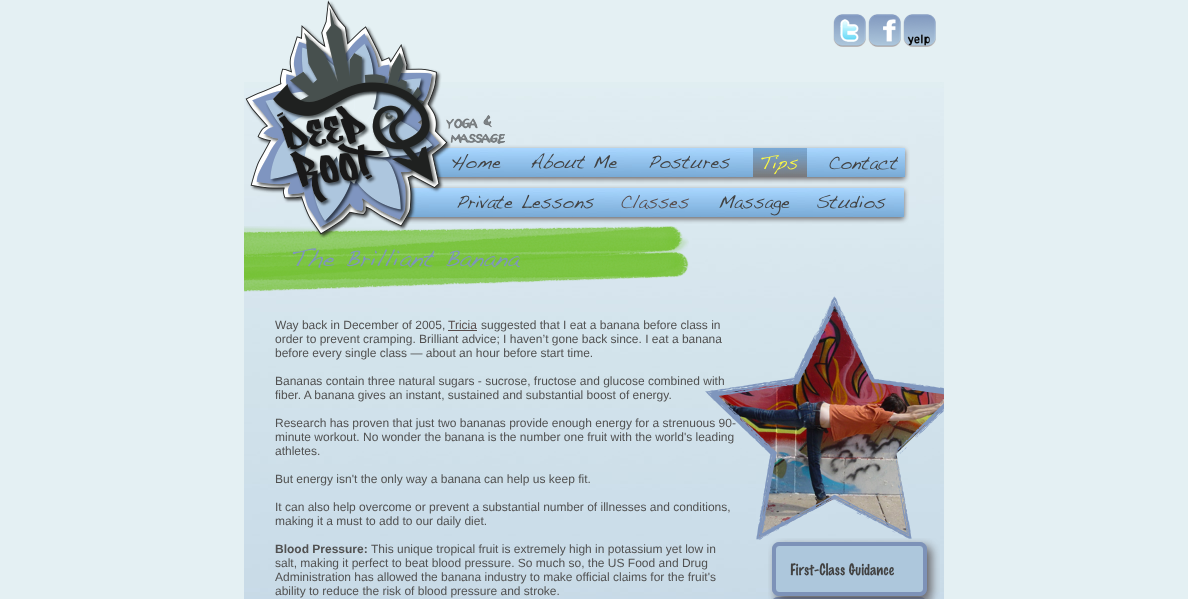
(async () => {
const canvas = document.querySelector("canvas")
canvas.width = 1188
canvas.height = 599
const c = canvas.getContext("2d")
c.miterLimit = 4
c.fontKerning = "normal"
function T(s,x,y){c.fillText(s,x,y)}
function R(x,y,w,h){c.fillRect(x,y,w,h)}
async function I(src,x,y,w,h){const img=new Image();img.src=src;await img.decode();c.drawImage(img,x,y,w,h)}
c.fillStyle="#e4f0f3"
R(0,0,1188,599)
await I("1.png",244,82,700,517)
await I("7.png",446,115,59,29)
await I("8.png",432,148,473,29)
await I("9.png",421,145,489,39)
await I("16.png",417,188,461,29)
await I("18.png",406,188,11,29)
await I("23.png",878,188,26,29)
await I("17.png",403,185,506,39)
await I("24.png",244,226,445,66)
await I("2.png",245,0,206,238)
await I("3.png",833,14,33,33)
await I("3.png",868,14,33,33)
await I("3.png",903,14,33,33)
await I("4.png",840,19,19,23)
await I("5.png",883,19,13,23)
await I("6.png",907,34,23,12)
await I("10.png",452,154,49,17)
await I("11.png",531,153,87,16)
await I("12.png",649,155,82,14)
await I("13.png",753,148,54,29)
await I("14.png",761,155,38,20)
await I("15.png",829,156,69,14)
await I("19.png",457,194,138,15)
await I("20.png",621,194,69,15)
await I("21.png",719,195,71,21)
await I("22.png",817,194,69,15)
await I("25.png",292,248,228,20)
c.font="12px Liberation Sans"
c.fillStyle="#515151"
T("Way back in December of 2005,",275,329)
c.fillStyle="#584d4d"
T("Tricia",448,329)
R(448,330,29,1)
c.fillStyle="#515151"
T("suggested that I eat a banana before class in",481,329)
T("order to prevent cramping. Brilliant advice; I haven’t gone back since. I eat a banana",275,343)
T("before every single class — about an hour before start time.",275,357)
T("Bananas contain three natural sugars - sucrose, fructose and glucose combined with",275,385)
T("fiber. A banana gives an instant, sustained and substantial boost of energy.",275,399)
T("Research has proven that just two bananas provide enough energy for a strenuous 90-",275,427)
T("minute workout. No wonder the banana is the number one fruit with the world's leading",275,441)
T("athletes.",275,455)
T("But energy isn't the only way a banana can help us keep fit.",275,483)
T("It can also help overcome or prevent a substantial number of illnesses and conditions,",275,511)
T("making it a must to add to our daily diet.",275,525)
c.font="bold 12px Liberation Sans"
T("Blood Pressure:",275,553)
c.font="12px Liberation Sans"
T("This unique tropical fruit is extremely high in potassium yet low in",371,553)
T("salt, making it perfect to beat blood pressure. So much so, the US Food and Drug",275,567)
T("Administration has allowed the banana industry to make official claims for the fruit's",275,581)
T("ability to reduce the risk of blood pressure and stroke.",275,595)
await I("28.png",771,594,164,5)
await I("27.png",768,538,172,61)
await I("26.png",705,296,239,244)
})()
